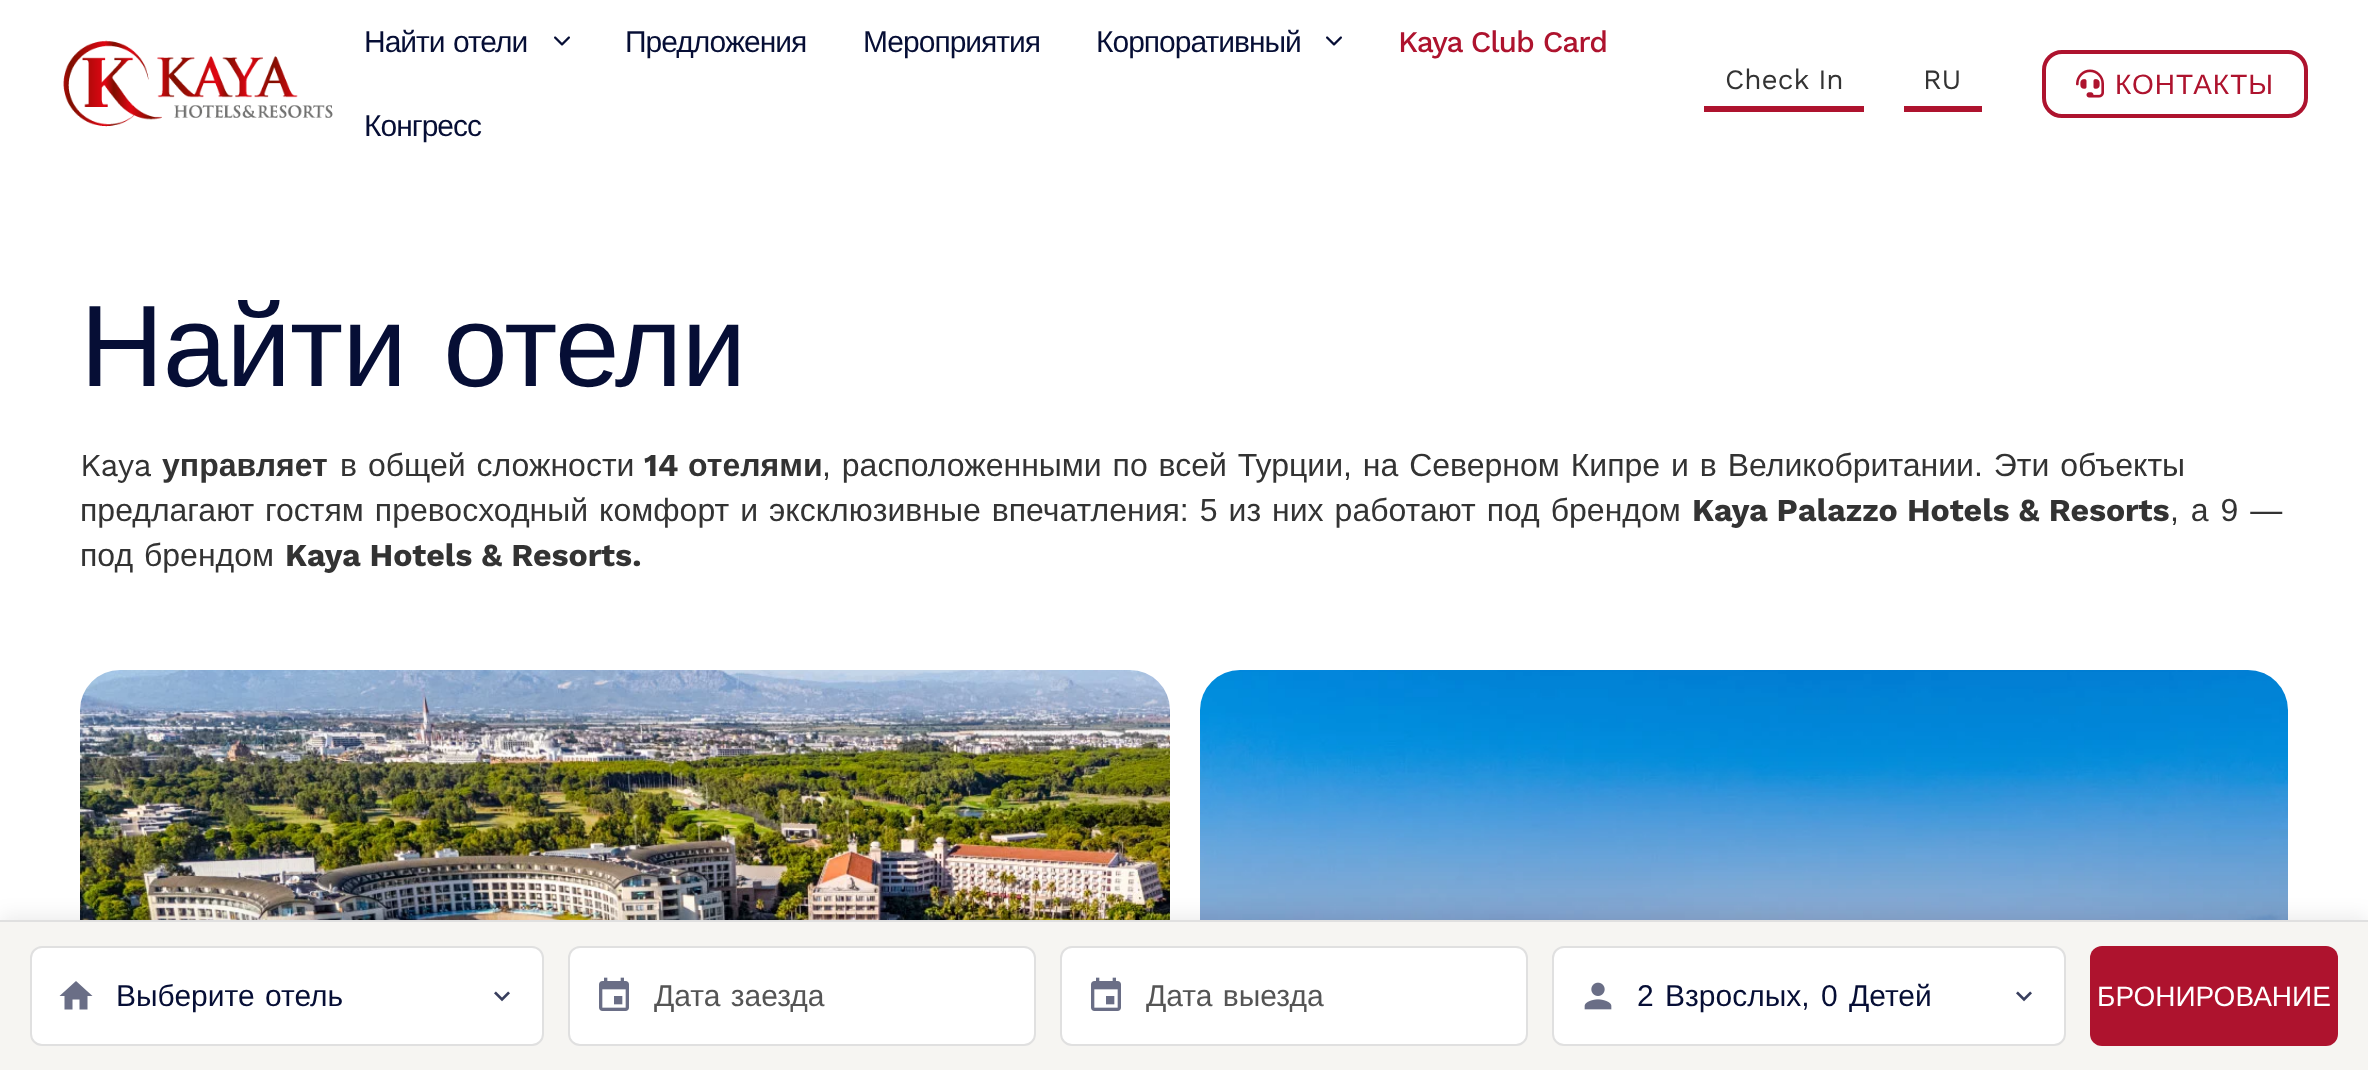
(async () => {
const canvas = document.querySelector("canvas")
canvas.width = 2368
canvas.height = 1070
const c = canvas.getContext("2d")
c.miterLimit = 4
c.fontKerning = "normal"
function T(s,x,y){c.fillText(s,x,y)}
function R(x,y,w,h){c.fillRect(x,y,w,h)}
function Q(x,y,w,h,r){c.beginPath();c.roundRect(x,y,w,h,r);c.fill()}
async function I(src,x,y,w,h){const img=new Image();img.src=src;await img.decode();c.drawImage(img,x,y,w,h)}
let path
c.fillStyle="#fff"
R(0,0,2368,1070)
await I("1.png",63,40,270,87)
c.letterSpacing="-1px"
c.wordSpacing="1px"
c.font="30px Liberation Sans"
c.fillStyle="#060e35"
T("Найти отели",364,52)
await I("2.png",554,36,16,10)
c.wordSpacing="0px"
T("Предложения",625,52)
T("Мероприятия",863,52)
T("Корпоративный",1096,52)
await I("2.png",1326,36,16,10)
c.font="500 30px Work Sans"
c.fillStyle="#ae132e"
T("Kaya Club Card",1398,52)
c.font="30px Liberation Sans"
c.fillStyle="#060e35"
T("Конгресс",364,136)
c.fillStyle="#ae132e"
R(1704,106,160,6)
c.letterSpacing="0px"
c.font="28px Work Sans"
c.fillStyle="#333"
T("Check In",1725,89)
c.fillStyle="#ae132e"
R(1904,106,78,6)
c.fillStyle="#333"
T("RU",1923,89)
c.beginPath()
c.roundRect(2044,52,262,64,18)
c.strokeStyle="#ae132e"
c.lineWidth=4
c.stroke()
await I("3.png",2076,69,28,29)
c.letterSpacing="1px"
c.font="28px Liberation Sans"
c.fillStyle="#ae132e"
T("КОНТАКТЫ",2115,94)
c.letterSpacing="-1px"
c.wordSpacing="6px"
c.font="116px Liberation Sans"
c.fillStyle="#060e35"
T("Найти отели",80,386)
c.letterSpacing="0px"
c.wordSpacing="0px"
c.font="32px Work Sans"
c.fillStyle="#333"
T("Kaya",80,476)
c.font="bold 32px Liberation Sans"
T("управляет",162,476)
c.wordSpacing="2px"
c.font="32px Liberation Sans"
T("в общей сложности",340,476)
c.wordSpacing="0px"
c.font="bold 32px Work Sans"
T("14",644,476)
c.font="bold 32px Liberation Sans"
T("отелями",688,476)
c.wordSpacing="2px"
c.font="32px Liberation Sans"
T(", расположенными по всей Турции, на Северном Кипре и в Великобритании. Эти объекты",822,476)
c.wordSpacing="2.1px"
T("предлагают гостям превосходный комфорт и эксклюзивные впечатления: 5 из них работают под брендом",80,521)
c.wordSpacing="0px"
c.font="bold 32px Work Sans"
T("Kaya Palazzo Hotels & Resorts",1692,521)
c.wordSpacing="3px"
c.font="32px Liberation Sans"
T(", а 9 —",2170,521)
c.wordSpacing="2px"
T("под брендом",80,566)
c.wordSpacing="0px"
c.font="bold 32px Work Sans"
T("Kaya Hotels & Resorts.",285,566)
await I("4.png",80,670,1090,250)
await I("5.png",1200,670,1088,250)
c.fillStyle="#00000014"
c.filter="blur(10px)"
c.beginPath()
c.rect(0,916,2368,150)
c.fill()
c.filter="none"
c.fillStyle="#f6f5f2"
R(0,922,2368,148)
c.fillStyle="#e0e0e0"
R(0,920,2368,2)
c.fillStyle="#fff"
c.beginPath()
c.roundRect(31,947,512,98,11)
c.fill()
c.strokeStyle="#e0e0e0"
c.lineWidth=2
c.stroke()
c.fillStyle="#6a6e86"
path = new Path2D("M72.5 1009.5v-10h7v10h8v-13.5h5l-16.5-15l-16.5 15h5v13.5z")
c.fill(path)
c.wordSpacing="2px"
c.font="30px Liberation Sans"
c.fillStyle="#060e35"
T("Выберите отель",116,1006)
await I("6.png",494,991,16,11)
c.fillStyle="#fff"
c.beginPath()
c.roundRect(569,947,466,98,11)
c.fill()
c.stroke()
await I("7.png",599,977,30,34)
c.fillStyle="#555"
T("Дата заезда",654,1006)
c.fillStyle="#fff"
c.beginPath()
c.roundRect(1061,947,466,98,11)
c.fill()
c.stroke()
await I("7.png",1091,977,30,34)
c.save()
c.beginPath()
c.rect(1146,978,356,36)
c.clip()
c.fillStyle="#555"
T("Дата выезда",1146,1006)
c.restore()
c.beginPath()
c.roundRect(1553,947,512,98,11)
c.fill()
c.stroke()
await I("8.png",1584,982,28,28)
c.wordSpacing="3px"
c.fillStyle="#060e35"
T("2 Взрослых, 0 Детей",1637,1006)
await I("6.png",2016,991,16,11)
c.fillStyle="#ae132e"
Q(2090,946,248,100,12)
c.wordSpacing="0px"
c.font="28px Liberation Sans"
c.fillStyle="#fff"
T("БРОНИРОВАНИЕ",2097,1006)
})()
